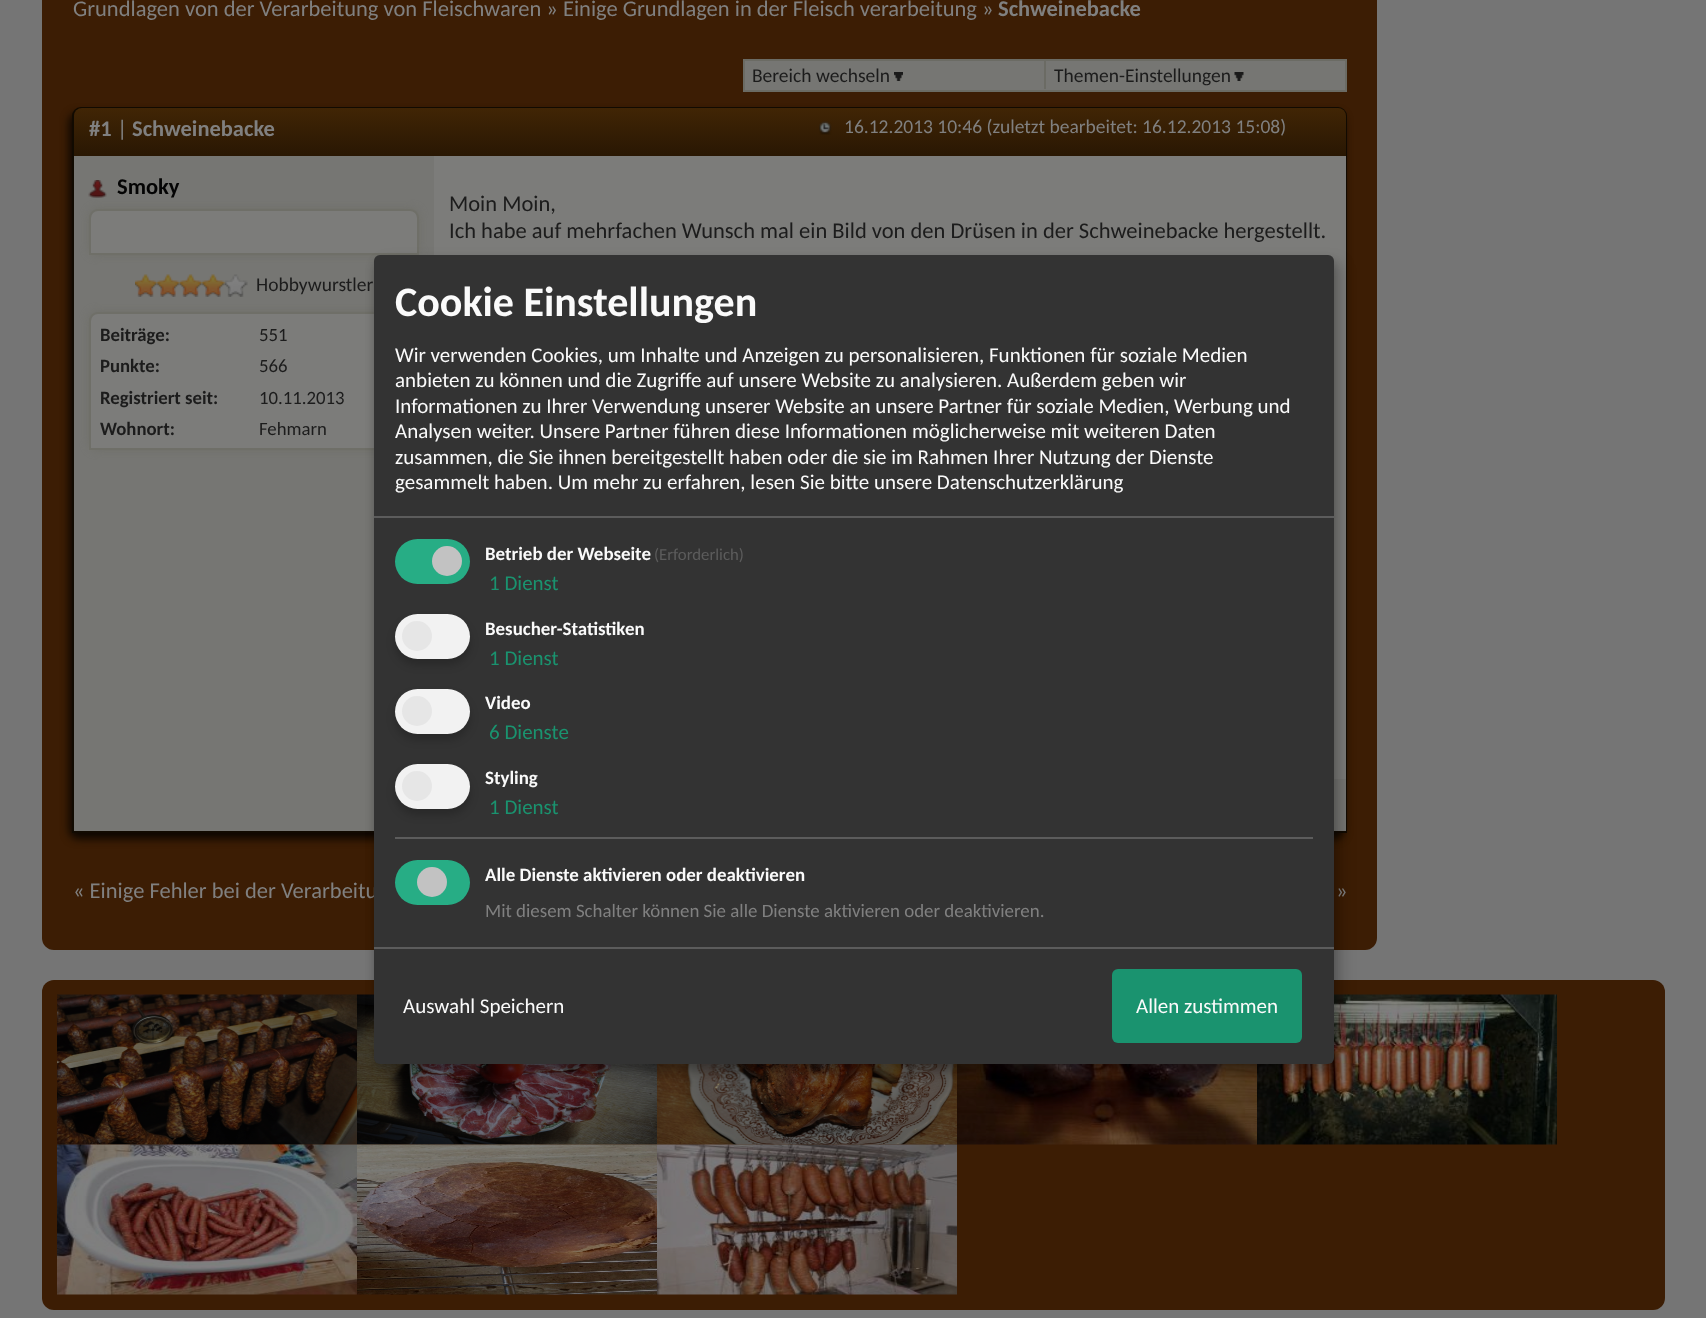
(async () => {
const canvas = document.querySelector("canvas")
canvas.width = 1706
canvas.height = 1318
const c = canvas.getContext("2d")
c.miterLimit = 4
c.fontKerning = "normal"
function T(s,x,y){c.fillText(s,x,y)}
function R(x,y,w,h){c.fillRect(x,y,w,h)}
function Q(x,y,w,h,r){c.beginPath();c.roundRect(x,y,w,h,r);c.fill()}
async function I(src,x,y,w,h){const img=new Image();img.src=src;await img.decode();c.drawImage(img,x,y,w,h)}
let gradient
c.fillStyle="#757575"
R(0,0,1706,1318)
c.fillStyle="#3c1d04"
Q(42,-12,1335,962,12)
c.font="22.5px Carlito"
c.fillStyle="#808080"
T("Grundlagen von der Verarbeitung von Fleischwaren » Einige Grundlagen in der Fleisch verarbeitung »",73,16)
c.font="bold 22.5px Carlito"
T("Schweinebacke",998,16)
c.fillStyle="#767673"
c.beginPath()
c.rect(744,60,602,31)
c.fill()
c.strokeStyle="#6b6b64"
c.lineWidth=2
c.stroke()
c.font="19.5px Carlito"
c.fillStyle="#1c1c1c"
T("Bereich wechseln",752,82)
await I("1.png",894,72,9,9)
c.fillStyle="#6b6b64"
R(1044,60,2,29)
c.fillStyle="#1c1c1c"
T("Themen-Einstellungen",1054,82)
await I("2.png",1234,72,10,9)
c.fillStyle="#0c0601"
c.filter="blur(4.5px)"
c.beginPath()
c.roundRect(69,113,1275,726,9)
c.fill()
c.filter="none"
c.beginPath()
c.roundRect(73,108,1273,724,[8,8,0,0])
c.strokeStyle="#110a01"
c.stroke()
gradient = c.createLinearGradient(74,108,74,156)
gradient.addColorStop(0,"#412505")
gradient.addColorStop(1,"#291703")
c.fillStyle = gradient
c.beginPath()
c.roundRect(74,108,1272,48,[8,8,0,0])
c.fill()
c.font="bold 22.5px Carlito"
c.fillStyle="#808080"
T("#1",89,136)
c.font="22.5px Carlito"
T("|",117,136)
c.font="bold 22.5px Carlito"
T("Schweinebacke",132,136)
await I("3.png",819,121,13,14)
c.font="19.5px Carlito"
T("16.12.2013 10:46 (zuletzt bearbeitet: 16.12.2013 15:08)",844,133)
c.fillStyle="#7c7c7a"
R(434,156,912,623)
c.fillStyle="#767673"
R(74,156,360,623)
await I("4.png",88,180,19,18)
c.font="bold 22.5px Carlito"
c.fillStyle="#040404"
T("Smoky",117,194)
c.fillStyle="#6f6f68"
c.filter="blur(4.5px)"
c.beginPath()
c.roundRect(89,209,330,46,9)
c.fill()
c.filter="none"
c.fillStyle="#7c7c7a"
c.beginPath()
c.roundRect(90,210,328,44,[8,8,0,0])
c.fill()
c.strokeStyle="#6f6f68"
c.stroke()
await I("5.png",135,274,113,23)
c.font="19.5px Carlito"
c.fillStyle="#1c1c1c"
T("Hobbywurstler",256,291)
c.fillStyle="#6f6f68"
c.filter="blur(4.5px)"
c.beginPath()
c.roundRect(89,312,330,138,9)
c.fill()
c.filter="none"
c.fillStyle="#7c7c7a"
c.beginPath()
c.roundRect(90,313,328,136,[8,8,0,0])
c.fill()
c.stroke()
c.font="bold 18.75px Carlito"
c.fillStyle="#1c1c1c"
T("Beiträge:",100,341)
c.font="18.75px Carlito"
T("551",259,341)
c.font="bold 18.75px Carlito"
T("Punkte:",100,372)
c.font="18.75px Carlito"
T("566",259,372)
c.font="bold 18.75px Carlito"
T("Registriert seit:",100,404)
c.font="18.75px Carlito"
T("10.11.2013",259,404)
c.font="bold 18.75px Carlito"
T("Wohnort:",100,435)
c.font="18.75px Carlito"
T("Fehmarn",259,435)
c.font="22.5px Carlito"
T("Moin Moin,",449,211)
T("Ich habe auf mehrfachen Wunsch mal ein Bild von den Drüsen in der Schweinebacke hergestellt.",449,238)
c.fillStyle="#767673"
R(74,779,1272,52)
c.fillStyle="#808080"
T("« Einige Fehler bei der Verarbeitu",73,898)
T("»",1336,898)
c.fillStyle="#3c1d04"
Q(42,980,1623,330,12)
await I("7.png",357,994,300,151)
await I("8.png",657,1064,300,81)
await I("9.png",957,1064,300,81)
await I("10.png",1257,994,300,151)
c.fillStyle="#00000030"
c.filter="blur(7.5px)"
c.beginPath()
c.roundRect(381,263,960,808,6)
c.fill()
c.filter="none"
c.fillStyle="#00000033"
c.filter="blur(4.5px)"
c.beginPath()
c.roundRect(374,261,960,809,6)
c.fill()
c.filter="none"
c.fillStyle="#333"
Q(374,255,960,809,6)
c.fillStyle="#5c5c5c"
R(374,516,960,2)
c.font="bold 42px Carlito"
c.fillStyle="#fafafa"
T("Cookie Einstellungen",395,316)
c.font="21px Carlito"
T("Wir verwenden Cookies, um Inhalte und Anzeigen zu personalisieren, Funktionen für soziale Medien",395,362)
T("anbieten zu können und die Zugriffe auf unsere Website zu analysieren. Außerdem geben wir",395,387)
T("Informationen zu Ihrer Verwendung unserer Website an unsere Partner für soziale Medien, Werbung und",395,413)
T("Analysen weiter. Unsere Partner führen diese Informationen möglicherweise mit weiteren Daten",395,438)
T("zusammen, die Sie ihnen bereitgestellt haben oder die sie im Rahmen Ihrer Nutzung der Dienste",395,464)
T("gesammelt haben. Um mehr zu erfahren, lesen Sie bitte unsere Datenschutzerklärung",395,489)
c.fillStyle="#27ad85"
Q(395,539,75,45,22.5)
c.fillStyle="#c2c2c2"
c.beginPath()
c.arc(447,561,15,0,7)
c.fill()
c.font="bold 18.9px Carlito"
c.fillStyle="#fafafa"
T("Betrieb der Webseite",485,560)
c.font="16.75px Carlito"
c.fillStyle="#5c5c5c"
T("(Erforderlich)",654,560)
c.font="21px Carlito"
c.fillStyle="#1a936f"
T("1 Dienst",489,590)
c.fillStyle="#00000033"
c.filter="blur(4.5px)"
c.beginPath()
c.roundRect(395,620,75,45,22.5)
c.fill()
c.filter="none"
c.fillStyle="#f2f2f2"
Q(395,614,75,45,22.5)
c.fillStyle="#e6e6e6"
c.beginPath()
c.arc(417,636,15,0,7)
c.fill()
c.font="bold 18.9px Carlito"
c.fillStyle="#fafafa"
T("Besucher-Statistiken",485,635)
c.font="21px Carlito"
c.fillStyle="#1a936f"
T("1 Dienst",489,665)
c.fillStyle="#00000033"
c.filter="blur(4.5px)"
c.beginPath()
c.roundRect(395,695,75,45,22.5)
c.fill()
c.filter="none"
c.fillStyle="#f2f2f2"
Q(395,689,75,45,22.5)
c.fillStyle="#e6e6e6"
c.beginPath()
c.arc(417,711,15,0,7)
c.fill()
c.font="bold 18.9px Carlito"
c.fillStyle="#fafafa"
T("Video",485,709)
c.font="21px Carlito"
c.fillStyle="#1a936f"
T("6 Dienste",489,739)
c.fillStyle="#00000033"
c.filter="blur(4.5px)"
c.beginPath()
c.roundRect(395,770,75,45,22.5)
c.fill()
c.filter="none"
c.fillStyle="#f2f2f2"
Q(395,764,75,45,22.5)
c.fillStyle="#e6e6e6"
c.beginPath()
c.arc(417,786,15,0,7)
c.fill()
c.font="bold 18.9px Carlito"
c.fillStyle="#fafafa"
T("Styling",485,784)
c.font="21px Carlito"
c.fillStyle="#1a936f"
T("1 Dienst",489,814)
c.fillStyle="#5c5c5c"
R(395,837,918,2)
c.fillStyle="#27ad85"
Q(395,860,75,45,22.5)
c.fillStyle="#c2c2c2"
c.beginPath()
c.arc(432,882,15,0,7)
c.fill()
c.font="bold 18.9px Carlito"
c.fillStyle="#fafafa"
T("Alle Dienste aktivieren oder deaktivieren",485,881)
c.font="18.9px Carlito"
c.fillStyle="#808080"
T("Mit diesem Schalter können Sie alle Dienste aktivieren oder deaktivieren.",485,917)
c.fillStyle="#5c5c5c"
R(374,947,960,2)
c.font="21px Carlito"
c.fillStyle="#fafafa"
T("Auswahl Speichern",403,1013)
c.fillStyle="#1a936f"
Q(1112,969,190,74,6)
c.fillStyle="#fafafa"
T("Allen zustimmen",1136,1013)
await I("6.png",57,994,300,151)
await I("11.png",57,1144,300,151)
await I("12.png",357,1144,300,151)
await I("13.png",657,1144,300,151)
})()
